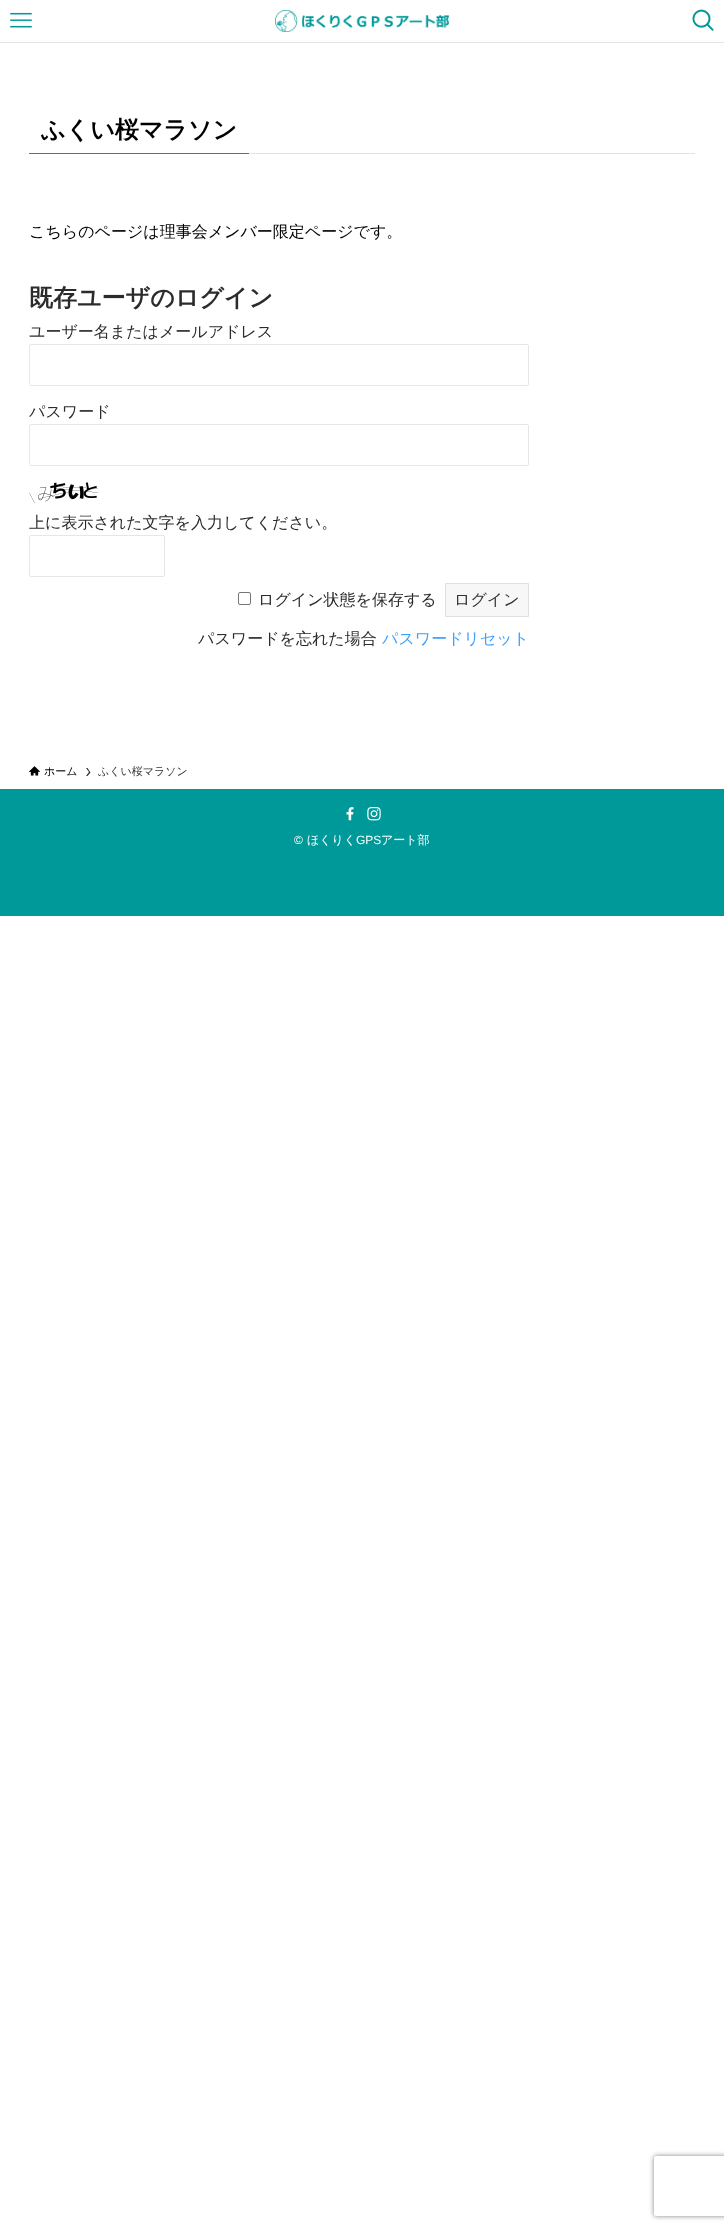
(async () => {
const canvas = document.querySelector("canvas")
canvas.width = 724
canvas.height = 2230
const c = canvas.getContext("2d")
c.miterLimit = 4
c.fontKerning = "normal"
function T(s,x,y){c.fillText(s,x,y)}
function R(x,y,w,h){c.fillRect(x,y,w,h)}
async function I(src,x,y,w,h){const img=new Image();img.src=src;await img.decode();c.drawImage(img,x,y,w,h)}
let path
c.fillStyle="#fff"
R(0,0,724,2230)
c.fillStyle="#e4e4e4"
R(0,42,724,1)
await I("1.png",10,12,22,16)
await I("2.png",275,10,174,22)
await I("3.png",692,9,22,22)
c.fillStyle="#e3e3e3"
R(249,153,446,1)
c.fillStyle="#099"
R(29,153,220,1)
c.font="bold 24px WenQuanYi Zen Hei"
c.fillStyle="#000"
T("ふくい桜マラソン",41,138)
c.font="500 16px WenQuanYi Zen Hei"
T("こちらのページは理事会メンバー限定ページです。",29,237)
c.font="bold 24px WenQuanYi Zen Hei"
c.fillStyle="#2b2b2b"
T("既存ユーザのログイン",29,306)
c.font="500 16px WenQuanYi Zen Hei"
T("ユーザー名またはメールアドレス",29,337)
c.beginPath()
c.roundRect(29.5,344.5,499,41,1.5)
c.strokeStyle="#e6e6e6"
c.stroke()
T("パスワード",29,417)
c.beginPath()
c.roundRect(29.5,424.5,499,41,1.5)
c.stroke()
await I("4.png",29,482,69,21)
T("上に表示された文字を入力してください。",29,528)
c.beginPath()
c.roundRect(29.5,535.5,135,41,1.5)
c.stroke()
c.beginPath()
c.roundRect(238.5,592.5,12,12,1.5)
c.strokeStyle="#767676"
c.stroke()
T("ログイン状態を保存する",258,605)
c.fillStyle="#f7f7f7"
c.beginPath()
c.rect(445.5,583.5,83,33)
c.fill()
c.strokeStyle="#dfdfdf"
c.stroke()
c.fillStyle="#333"
T("ログイン",454,605)
c.fillStyle="#2b2b2b"
T("パスワードを忘れた場合",198,644)
c.fillStyle="#39a0ff"
T("パスワードリセット",382,644)
await I("5.png",29,766,11,10)
c.font="500 11px WenQuanYi Zen Hei"
c.fillStyle="#000"
T("ホーム",44,775)
c.fillStyle="#333"
path = new Path2D("M87.5 768h-1.5l3 4l-3 4h1.5l3-3.5z")
c.fill(path)
T("ふくい桜マラソン",98,775)
c.fillStyle="#099"
R(0,789,724,127)
await I("6.png",346,807,8,14)
await I("7.png",367,807,14,14)
c.font="12px Liberation Sans"
c.fillStyle="#fff"
T("©",294,844)
c.font="500 12px WenQuanYi Zen Hei"
T("ほくりく",307,844)
c.font="12px Liberation Sans"
T("GPS",356,844)
c.font="500 12px WenQuanYi Zen Hei"
T("アート部",381,844)
c.save()
path = new Path2D("M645 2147h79v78h-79zm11 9h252c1 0 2 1 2 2v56c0 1-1 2-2 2h-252c-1 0-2-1-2-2v-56c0-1 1-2 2-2z")
c.clip(path,"evenodd")
c.fillStyle="#808080"
c.filter="blur(2.5px)"
c.beginPath()
c.roundRect(654,2156,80,60,2)
c.fill()
c.filter="none"
c.restore()
})()
